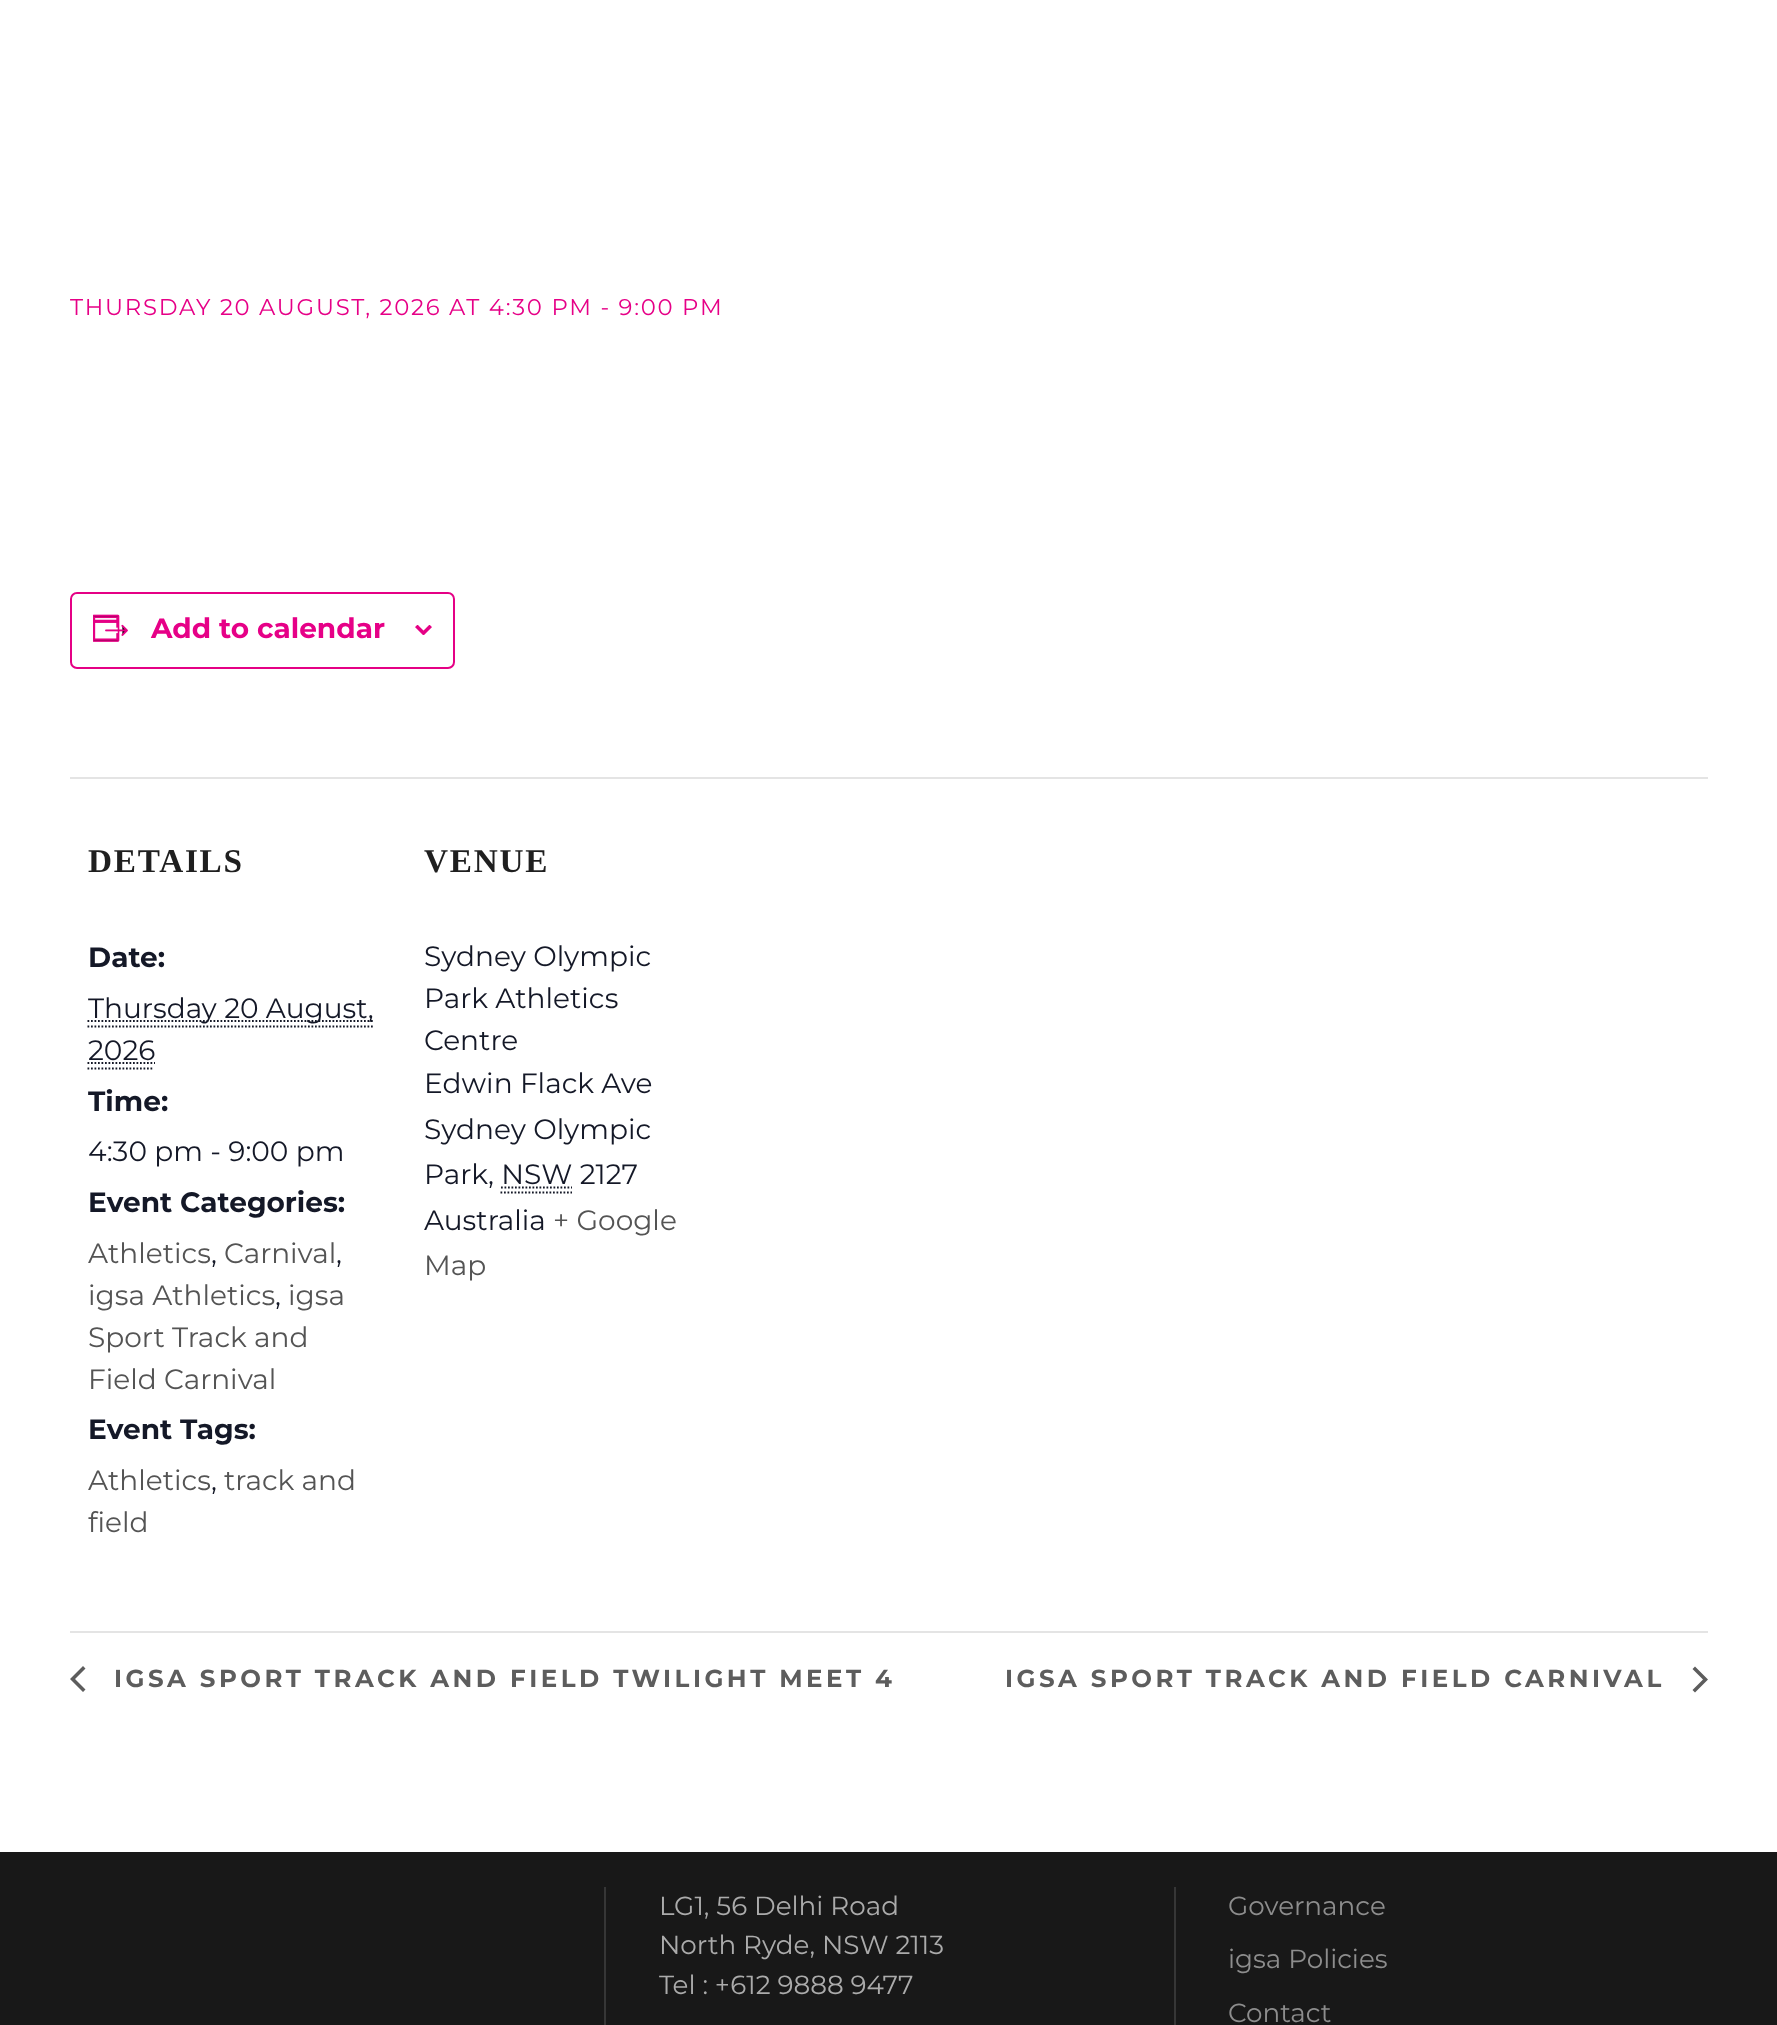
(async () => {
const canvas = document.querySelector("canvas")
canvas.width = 1777
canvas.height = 2025
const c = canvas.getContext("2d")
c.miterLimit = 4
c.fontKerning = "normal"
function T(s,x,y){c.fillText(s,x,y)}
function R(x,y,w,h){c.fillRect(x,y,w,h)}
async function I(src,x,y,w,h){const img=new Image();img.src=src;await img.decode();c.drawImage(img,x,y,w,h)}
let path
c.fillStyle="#fff"
R(0,0,1777,2025)
c.letterSpacing="1.75px"
c.font="22.75px Montserrat"
c.fillStyle="#e60087"
T("THURSDAY 20 AUGUST, 2026 AT 4:30 PM - 9:00 PM",70,315)
c.beginPath()
c.roundRect(71,593,383,75,6)
c.strokeStyle="#e50085"
c.lineWidth=2
c.stroke()
await I("1.png",93,614,35,28)
c.letterSpacing="0px"
c.font="bold 28px Montserrat"
T("Add to calendar",151,638)
await I("2.png",415,625,17,10)
c.fillStyle="#e4e4e4"
R(70,777,1638,2)
c.letterSpacing="1.75px"
c.font="bold 33.25px Liberation Serif"
c.fillStyle="#1f1f1f"
T("DETAILS",88,872)
c.letterSpacing="0px"
c.font="bold 28px Montserrat"
c.fillStyle="#141827"
T("Date:",88,967)
path = new Path2D("M87.5 1021h285.5")
c.strokeStyle="#141827"
c.lineWidth=1.8
c.setLineDash([1.75,1.75])
c.stroke(path)
c.font="28px Montserrat"
T("Thursday 20 August,",88,1018)
path = new Path2D("M87.5 1026.5h285.5")
c.stroke(path)
T("2026",88,1060)
path = new Path2D("M87.5 1068.5h66.5")
c.stroke(path)
path = new Path2D("M87.5 1063h67.5")
c.stroke(path)
c.font="bold 28px Montserrat"
T("Time:",88,1111)
c.font="28px Montserrat"
T("4:30 pm - 9:00 pm",88,1161)
c.font="bold 28px Montserrat"
T("Event Categories:",88,1212)
c.font="28px Montserrat"
c.fillStyle="#545454"
T("Athletics",88,1263)
c.fillStyle="#141827"
T(",",211,1263)
c.fillStyle="#545454"
T("Carnival",224,1263)
c.fillStyle="#141827"
T(",",336,1263)
c.fillStyle="#545454"
T("igsa Athletics",88,1305)
c.fillStyle="#141827"
T(",",275,1305)
c.fillStyle="#545454"
T("igsa",288,1305)
T("Sport Track and",88,1347)
T("Field Carnival",88,1389)
c.font="bold 28px Montserrat"
c.fillStyle="#141827"
T("Event Tags:",88,1439)
c.font="28px Montserrat"
c.fillStyle="#545454"
T("Athletics",88,1490)
c.fillStyle="#141827"
T(",",211,1490)
c.fillStyle="#545454"
T("track and",224,1490)
T("field",88,1532)
c.letterSpacing="1.75px"
c.font="bold 33.25px Liberation Serif"
c.fillStyle="#1f1f1f"
T("VENUE",424,872)
c.letterSpacing="0px"
c.font="28px Montserrat"
c.fillStyle="#141827"
T("Sydney Olympic",424,966)
T("Park Athletics",424,1008)
T("Centre",424,1050)
T("Edwin Flack Ave",424,1093)
T("Sydney Olympic",424,1139)
T("Park",424,1184)
T(", NSW 2127",488,1184)
path = new Path2D("M500.5 1192.5h71.5")
c.stroke(path)
path = new Path2D("M501 1187.5h71")
c.stroke(path)
T("Australia",424,1230)
c.fillStyle="#545454"
T("+ Google",553,1230)
T("Map",424,1275)
c.fillStyle="#e4e4e4"
R(70,1631,1638,2)
c.fillStyle="#5d5d5d"
path = new Path2D("M85.5 1689.5l-2.5 2.5l-13-13l13-13l2.5 2.5l-10.5 10.5z")
c.fill(path)
c.letterSpacing="3.5px"
c.font="bold 24.5px Montserrat"
T("IGSA SPORT TRACK AND FIELD TWILIGHT MEET 4",114,1687)
T("IGSA SPORT TRACK AND FIELD CARNIVAL",1005,1687)
path = new Path2D("M1692.5 1669l2.5-2.5l13 13l-13 13l-2.5-2.5l10.5-10.5z")
c.fill(path)
c.fillStyle="#181818"
R(0,1852,1777,173)
c.fillStyle="#363636"
R(604,1887,2,138)
c.letterSpacing="0px"
c.font="26.25px Montserrat"
c.fillStyle="#ababab"
T("LG1, 56 Delhi Road",659,1915)
T("North Ryde, NSW 2113",659,1954)
T("Tel : +612 9888 9477",659,1994)
c.fillStyle="#363636"
R(1174,1887,2,138)
c.fillStyle="#8d8d8d"
T("Governance",1228,1915)
T("igsa Policies",1228,1968)
T("Contact",1228,2022)
})()
